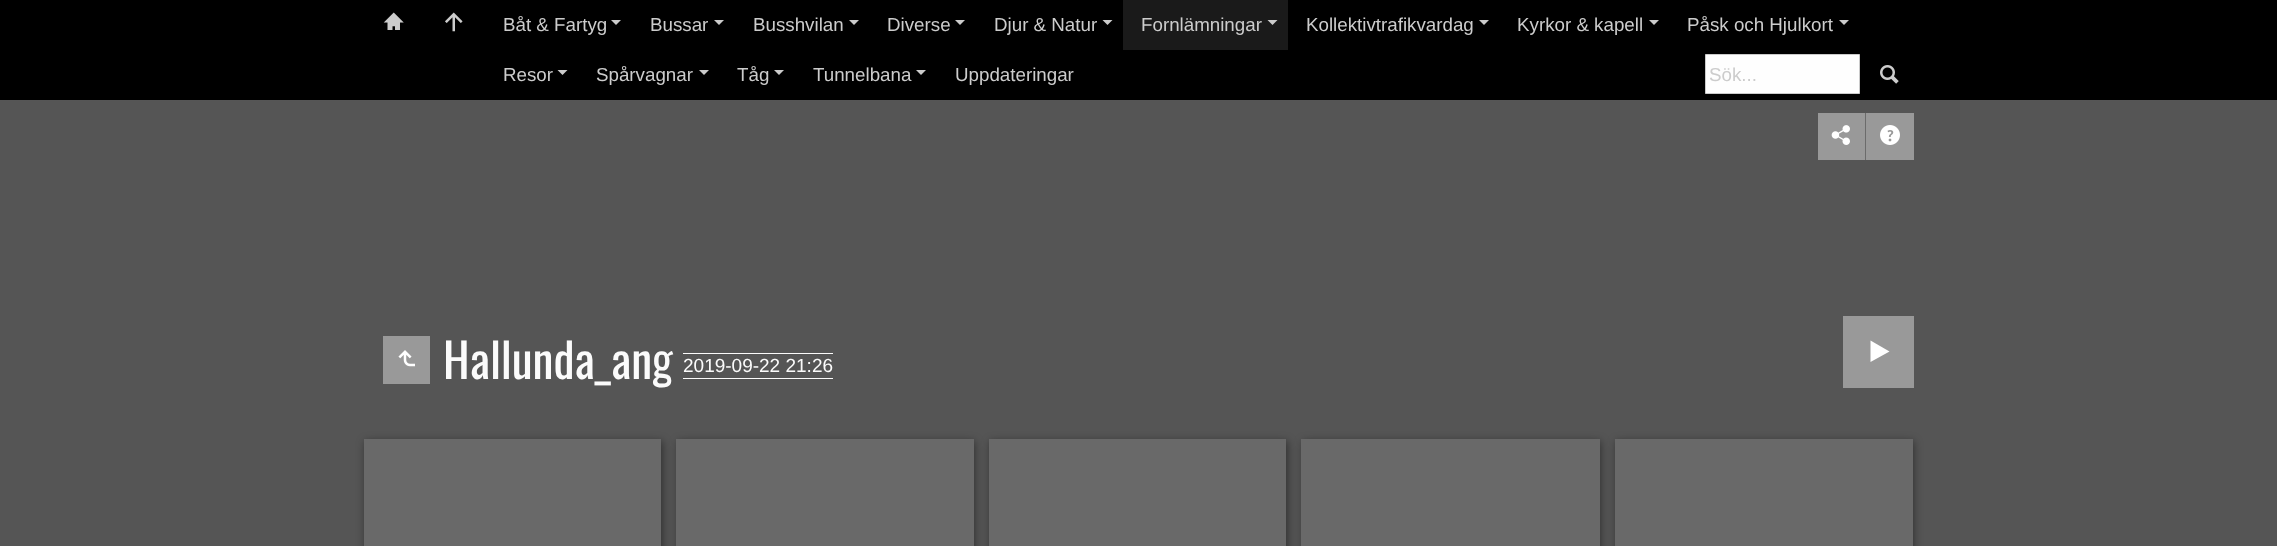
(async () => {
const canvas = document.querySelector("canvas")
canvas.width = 2277
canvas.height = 546
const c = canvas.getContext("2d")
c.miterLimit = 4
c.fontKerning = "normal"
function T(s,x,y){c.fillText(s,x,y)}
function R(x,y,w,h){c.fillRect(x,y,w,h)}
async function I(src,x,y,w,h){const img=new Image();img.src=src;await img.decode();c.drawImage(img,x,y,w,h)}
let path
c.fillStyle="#555"
R(0,0,2277,546)
c.fillStyle="#000"
R(0,0,2277,100)
await I("1.png",383,12,21,18)
await I("2.png",445,12,18,20)
c.font="18.75px Liberation Sans"
c.fillStyle="#ccc"
T("Båt & Fartyg",503,31)
path = new Path2D("M611 20h10l-5 5z")
c.fill(path)
T("Bussar",650,31)
path = new Path2D("M714 20h10l-5 5z")
c.fill(path)
T("Busshvilan",753,31)
path = new Path2D("M849 20h10l-5 5z")
c.fill(path)
T("Diverse",887,31)
path = new Path2D("M955 20h10l-5 5z")
c.fill(path)
T("Djur & Natur",994,31)
path = new Path2D("M1102.5 20h10l-5 5z")
c.fill(path)
c.fillStyle="#1a1a1a"
R(1123,0,165,50)
c.fillStyle="#ccc"
T("Fornlämningar",1141,31)
path = new Path2D("M1267.5 20h10l-5 5z")
c.fill(path)
T("Kollektivtrafikvardag",1306,31)
path = new Path2D("M1479 20h10l-5 5z")
c.fill(path)
T("Kyrkor & kapell",1517,31)
path = new Path2D("M1649 20h10l-5 5z")
c.fill(path)
T("Påsk och Hjulkort",1687,31)
path = new Path2D("M1839 20h10l-5 5z")
c.fill(path)
T("Resor",503,81)
path = new Path2D("M557.5 70h10l-5 5z")
c.fill(path)
T("Spårvagnar",596,81)
path = new Path2D("M699 70h10l-5 5z")
c.fill(path)
T("Tåg",737,81)
path = new Path2D("M774 70h10l-5 5z")
c.fill(path)
T("Tunnelbana",813,81)
path = new Path2D("M916 70h10l-5 5z")
c.fill(path)
T("Uppdateringar",955,81)
c.fillStyle="#fefefe"
c.beginPath()
c.rect(1705.5,54.5,154,39)
c.fill()
c.strokeStyle="#cacaca"
c.stroke()
c.fillStyle="#ccc"
T("Sök...",1709,81)
await I("3.png",1880,65,19,19)
c.fillStyle="#999"
R(383,336,47,48)
await I("4.png",398,350,17,17)
c.font="47.5px Oswald"
c.fillStyle="#fbfbfb"
T("Hallunda_ang",443,379)
R(683,353,150,1)
R(683,378,150,1)
c.font="19px Liberation Sans"
T("2019-09-22 21:26",683,372)
c.fillStyle="#999"
R(1818,113,47,47)
await I("5.png",1831,125,19,20)
R(1866,113,48,47)
c.fillStyle="#6b6b6b"
R(1865,113,1,47)
await I("6.png",1880,125,20,20)
c.fillStyle="#999"
R(1843,316,71,72)
c.fillStyle="#fff"
path = new Path2D("M1870.5 340.5l19 11l-19 10.5z")
c.fill(path)
c.fillStyle="#0000006b"
c.filter="blur(4px)"
c.beginPath()
c.rect(365,441,298,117)
c.fill()
c.filter="none"
c.fillStyle="#696969"
R(364,439,297,107)
c.save()
path = new Path2D("M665 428h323v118h-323zm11 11h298v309h-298z")
c.clip(path,"evenodd")
c.fillStyle="#0000006b"
c.filter="blur(4px)"
c.beginPath()
c.rect(678,441,297,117)
c.fill()
c.filter="none"
c.restore()
c.fillStyle="#eeeeee21"
R(676,439,298,107)
c.fillStyle="#0000006b"
c.filter="blur(4px)"
c.beginPath()
c.rect(990,441,298,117)
c.fill()
c.filter="none"
c.fillStyle="#696969"
R(989,439,297,107)
c.save()
path = new Path2D("M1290 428h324v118h-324zm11 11h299v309h-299z")
c.clip(path,"evenodd")
c.fillStyle="#0000006b"
c.filter="blur(4px)"
c.beginPath()
c.rect(1303,441,298,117)
c.fill()
c.filter="none"
c.restore()
c.fillStyle="#eeeeee21"
R(1301,439,299,107)
c.save()
path = new Path2D("M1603 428h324v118h-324zm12 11h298v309h-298z")
c.clip(path,"evenodd")
c.fillStyle="#0000006b"
c.filter="blur(4px)"
c.beginPath()
c.rect(1616,441,298,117)
c.fill()
c.filter="none"
c.restore()
R(1615,439,298,107)
})()
